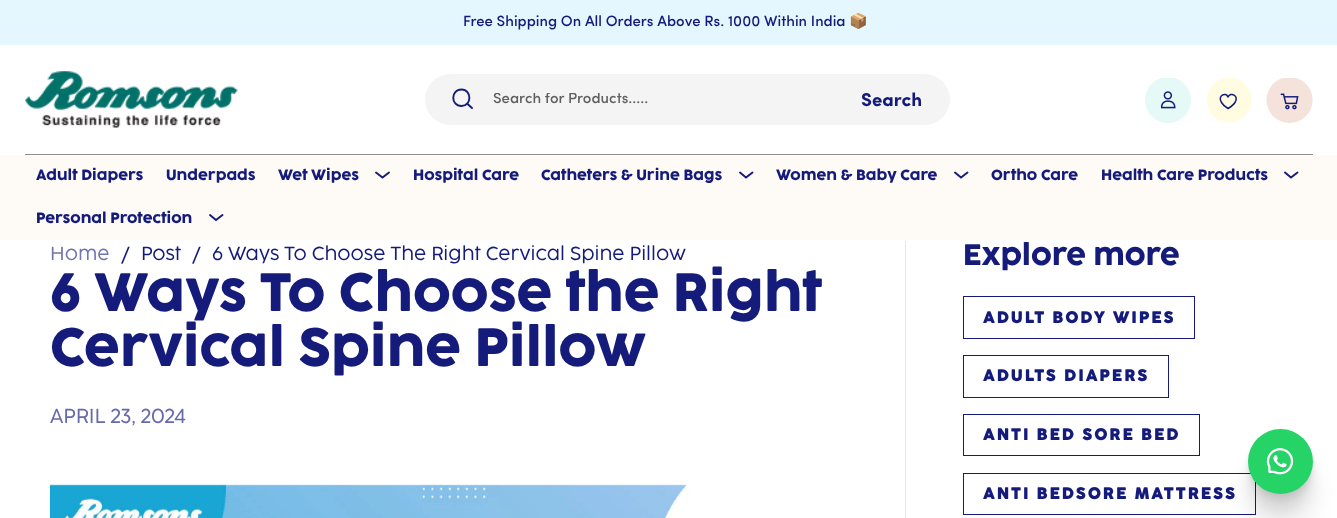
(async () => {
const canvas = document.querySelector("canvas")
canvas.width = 1337
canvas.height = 518
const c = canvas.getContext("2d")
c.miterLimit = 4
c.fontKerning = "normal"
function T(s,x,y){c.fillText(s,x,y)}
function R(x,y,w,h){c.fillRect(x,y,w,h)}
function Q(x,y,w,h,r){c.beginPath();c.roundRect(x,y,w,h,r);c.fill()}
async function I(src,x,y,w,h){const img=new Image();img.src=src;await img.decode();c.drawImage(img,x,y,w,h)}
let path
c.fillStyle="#fff"
R(0,0,1337,518)
c.fillStyle="#e5f7fe"
R(0,0,1337,45)
c.font="500 15px Sofia"
c.fillStyle="#141b7a"
T("Free Shipping On All Orders Above Rs. 1000 Within India",463,26)
c.save()
c.beginPath()
c.rect(50,13,1231,20)
c.clip()
c.font="15px Noto Color Emoji"
T("📦",849,26)
c.restore()
c.fillStyle="#918f90"
R(25,154,1288,1)
await I("1.png",25,71,213,57)
c.fillStyle="#f4f4f4"
Q(425,74,525,51,25.5)
path = new Path2D("M461.5 106c10.5 0 10.5-16.5 0-16.5c-11 0-11 16.5 0 16.5zm5.5-2.5l5 4.5")
c.strokeStyle="#141b7a"
c.lineWidth=1.9
c.lineCap="round"
c.lineJoin="round"
c.stroke(path)
c.save()
c.beginPath()
c.rect(493,93,358,15)
c.clip()
c.fillStyle="#625f60"
T("Search for Products.....",493,103)
c.restore()
c.font="bold 18.75px Sofia"
c.fillStyle="#141b7a"
T("Search",861,106)
await I("2.png",1145,78,46,45)
c.save()
c.beginPath()
c.rect(1206,78,45,45)
c.clip()
c.fillStyle="#fffce1"
c.beginPath()
c.arc(1229,100,22.5,0,7)
c.fill()
c.restore()
path = new Path2D("M1228 108.5c-2.5-1.5-5-3.5-6.5-6c-4.5-7 4.5-11 6.5-5.5c2.5-5.5 11.5-1.5 7 5.5c-1.5 2.5-4.5 4.5-7 6z")
c.lineWidth=1.5
c.stroke(path)
await I("3.png",1266,78,47,45)
c.fillStyle="#fefaf5"
R(0,155,1337,85)
c.font="13.75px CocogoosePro"
c.fillStyle="#141b7a"
T("Adult Diapers",36,180)
T("Underpads",166,180)
T("Wet Wipes",278,180)
path = new Path2D("M376 172.5l6.5 5l6.5-5")
c.lineWidth=1.9
c.lineJoin="miter"
c.stroke(path)
T("Hospital Care",413,180)
T("Catheters & Urine Bags",541,180)
path = new Path2D("M740 172.5l6 5l6.5-5")
c.stroke(path)
T("Women & Baby Care",776,180)
path = new Path2D("M955 172.5l6 5l6.5-5")
c.stroke(path)
T("Ortho Care",991,180)
T("Health Care Products",1101,180)
path = new Path2D("M1285 172.5l6 5l6.5-5")
c.stroke(path)
T("Personal Protection",36,223)
path = new Path2D("M210 215l6 5l6.5-5")
c.stroke(path)
c.font="300 17.5px CocogoosePro"
c.fillStyle="#7276af"
T("Home",50,260)
c.fillStyle="#141b7a"
T("/",121,260)
T("Post",141,260)
T("/",192,260)
T("6 Ways To Choose The Right Cervical Spine Pillow",212,260)
c.font="50px CocogoosePro"
T("6 Ways To Choose the Right",50,311)
T("Cervical Spine Pillow",50,366)
c.font="300 18.75px CocogoosePro"
c.fillStyle="#666ba9"
T("APRIL 23, 2024",50,423)
await I("4.png",50,484,639,34)
c.fillStyle="#e8e8e1"
R(905,241,1,277)
c.font="27.5px CocogoosePro"
c.fillStyle="#141b7a"
T("Explore more",963,265)
c.lineWidth=1
c.strokeRect(963.5,296.5,231,42)
c.letterSpacing="2.25px"
c.font="bold 15px CocogoosePro"
T("ADULT BODY WIPES",983,323)
c.strokeRect(963.5,355.5,205,42)
T("ADULTS DIAPERS",983,381)
c.strokeRect(963.5,414.5,236,41)
T("ANTI BED SORE BED",983,440)
c.strokeRect(963.5,473.5,292,41)
T("ANTI BEDSORE MATTRESS",983,499)
c.fillStyle="#0000001a"
c.filter="blur(12.5px)"
c.beginPath()
c.roundRect(1248,460,65,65,32.5)
c.fill()
c.filter="none"
c.fillStyle="#0000000f"
c.filter="blur(6px)"
c.beginPath()
c.roundRect(1248,445,65,65,32.5)
c.fill()
c.filter="none"
c.filter="blur(2.5px)"
c.beginPath()
c.roundRect(1248,436,65,65,32.5)
c.fill()
c.filter="none"
c.fillStyle="#0000000a"
c.filter="blur(1px)"
c.beginPath()
c.roundRect(1248,431,65,65,32.5)
c.fill()
c.filter="none"
c.fillStyle="#25d366"
c.beginPath()
c.arc(1280.5,461.5,32.5,0,7)
c.fill()
await I("5.png",1266,448,28,27)
})()
